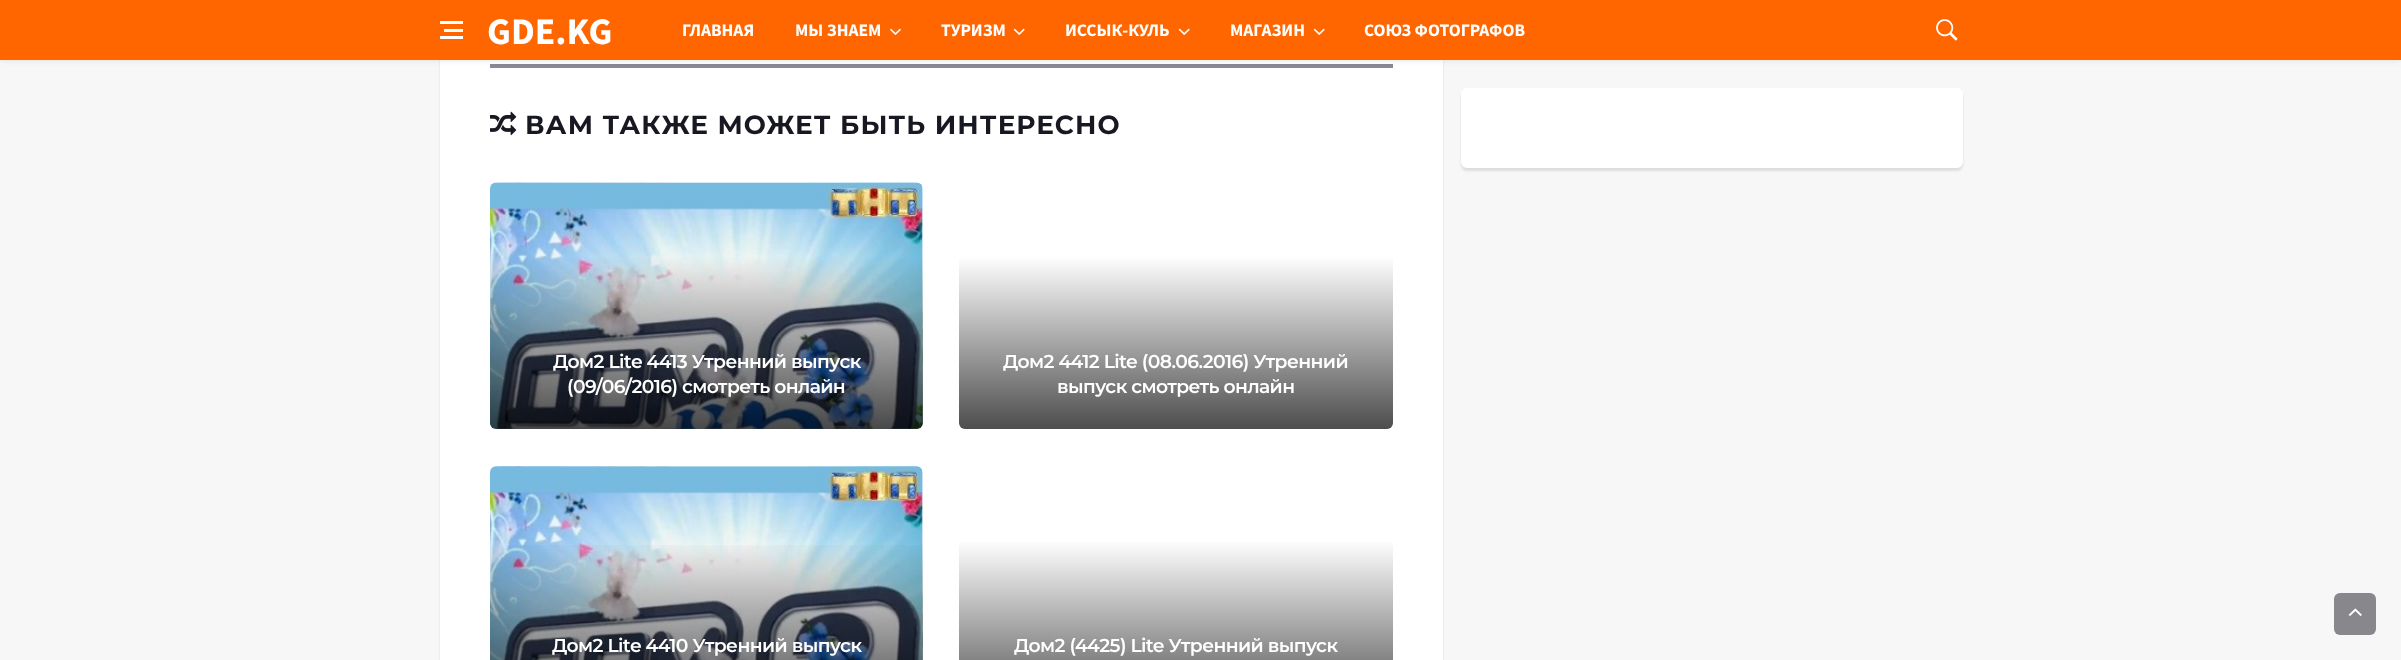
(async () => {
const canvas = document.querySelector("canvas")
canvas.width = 2401
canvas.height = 660
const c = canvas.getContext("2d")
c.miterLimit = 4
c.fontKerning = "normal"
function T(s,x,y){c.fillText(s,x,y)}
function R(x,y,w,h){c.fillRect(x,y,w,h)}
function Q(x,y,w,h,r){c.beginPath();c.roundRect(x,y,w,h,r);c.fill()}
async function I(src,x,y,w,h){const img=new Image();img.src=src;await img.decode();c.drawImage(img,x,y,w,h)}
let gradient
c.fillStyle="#f7f7f7"
R(0,0,2401,660)
c.fillStyle="#0000001a"
c.filter="blur(1px)"
c.beginPath()
c.roundRect(440,-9,1003,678,6)
c.fill()
c.filter="none"
c.fillStyle="#fff"
R(440,60,1003,600)
c.fillStyle="#888994"
R(490,64,903,4)
c.fillStyle="#0000001a"
c.filter="blur(3px)"
c.beginPath()
c.rect(0,0,2401,60)
c.fill()
c.filter="none"
c.fillStyle="#f60"
R(0,0,2401,60)
c.fillStyle="#fff"
R(444,29,19,3)
R(440,21,23,3)
R(440,36,23,3)
c.font="bold 37.5px Source Sans Pro"
T("GDE.KG",487,44)
c.font="bold 17.5px Source Sans Pro"
T("ГЛАВНАЯ",682,36)
T("МЫ ЗНАЕМ",795,36)
await I("1.png",890,28,11,7)
T("ТУРИЗМ",941,36)
await I("2.png",1013,28,12,7)
T("ИССЫК-КУЛЬ",1065,36)
await I("2.png",1178,28,12,7)
T("МАГАЗИН",1230,36)
await I("2.png",1313,28,12,7)
T("СОЮЗ ФОТОГРАФОВ",1364,36)
await I("3.png",1936,19,22,22)
await I("4.png",490,111,27,25)
c.letterSpacing="1.05px"
c.font="bold 26.25px Montserrat"
c.fillStyle="#171821"
T("ВАМ ТАКЖЕ МОЖЕТ БЫТЬ ИНТЕРЕСНО",525,134)
await I("5.png",490,182,433,247)
await I("6.png",490,182,433,247)
gradient = c.createLinearGradient(706,429,706,256)
gradient.addColorStop(0,"#000000b3")
gradient.addColorStop(1,"#00000000")
c.fillStyle = gradient
c.beginPath()
c.roundRect(490,256,433,173,[0,0,6,6])
c.fill()
c.letterSpacing="-0.6px"
c.font="600 18.75px Montserrat"
c.fillStyle="#fff"
T("Дом2 Lite 4413 Утренний выпуск",553,368)
T("(09/06/2016) смотреть онлайн",567,393)
gradient = c.createLinearGradient(1176,429,1176,256)
gradient.addColorStop(0,"#4d4d4d")
gradient.addColorStop(1,"#fff")
c.fillStyle = gradient
c.beginPath()
c.roundRect(959,256,434,173,[0,0,6,6])
c.fill()
c.fillStyle="#fff"
T("Дом2 4412 Lite (08.06.2016) Утренний",1003,368)
T("выпуск смотреть онлайн",1057,393)
await I("7.png",490,466,433,194)
await I("8.png",490,466,433,194)
gradient = c.createLinearGradient(706,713,706,540)
gradient.addColorStop(0,"#000000b3")
gradient.addColorStop(1,"#00000000")
c.fillStyle = gradient
R(490,545,433,115)
c.fillStyle="#fff"
T("Дом2 Lite 4410 Утренний выпуск",552,652)
gradient = c.createLinearGradient(1176,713,1176,540)
gradient.addColorStop(0,"#4d4d4d")
gradient.addColorStop(1,"#fff")
c.fillStyle = gradient
R(959,542,434,118)
c.fillStyle="#fff"
T("Дом2 (4425) Lite Утренний выпуск",1014,652)
c.fillStyle="#0000001a"
c.filter="blur(1px)"
c.beginPath()
c.roundRect(1461,91,502,80,6)
c.fill()
c.filter="none"
c.fillStyle="#fff"
Q(1461,88,502,80,6)
c.fillStyle="#87878c"
Q(2334,593,42,42,6)
await I("9.png",2348,608,14,8)
})()
